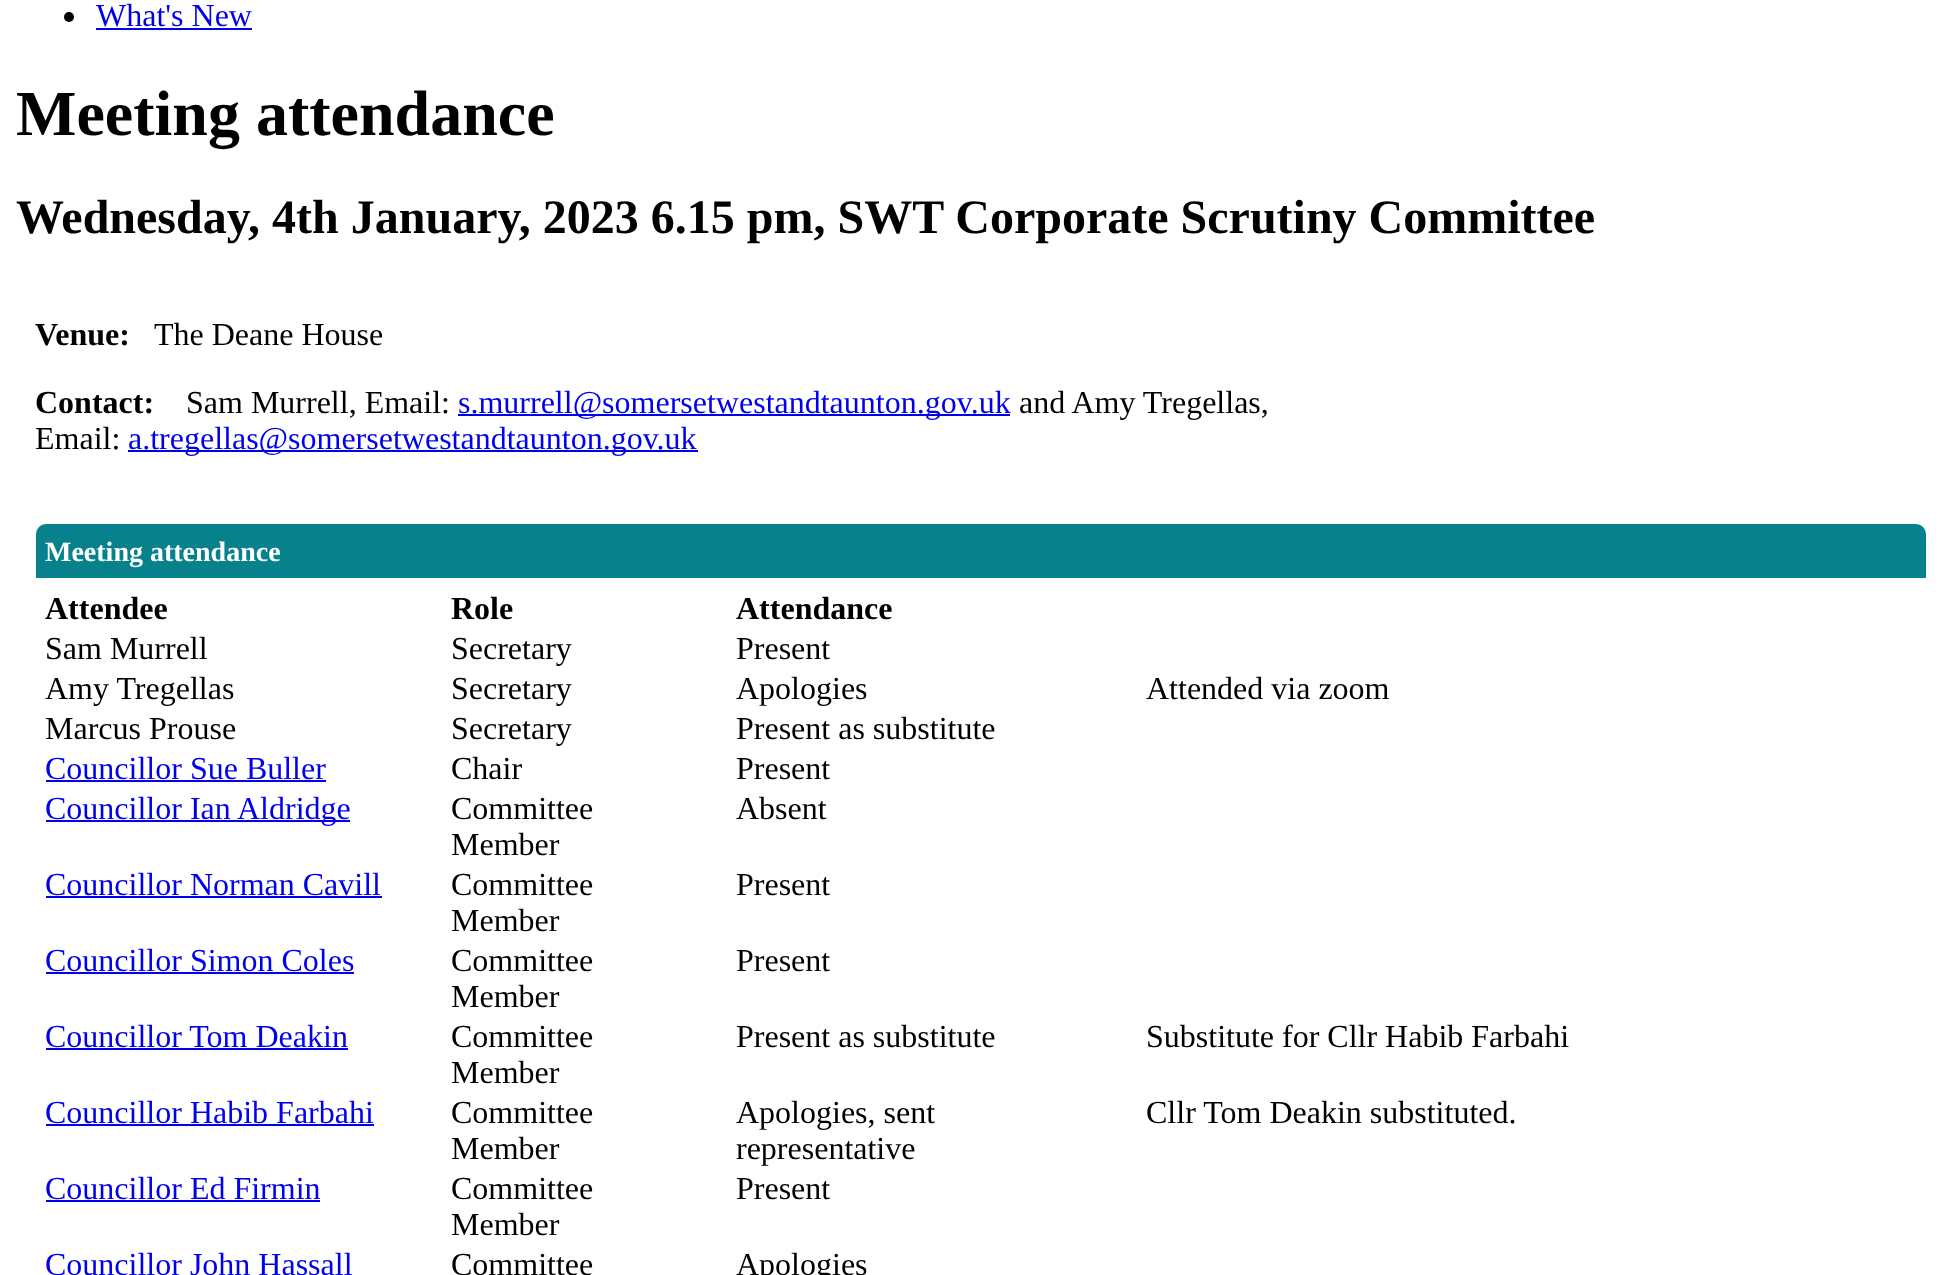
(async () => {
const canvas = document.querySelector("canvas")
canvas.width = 1942
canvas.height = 1275
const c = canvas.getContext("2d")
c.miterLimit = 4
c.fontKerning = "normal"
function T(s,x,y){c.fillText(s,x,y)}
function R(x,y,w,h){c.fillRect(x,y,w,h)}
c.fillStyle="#fff"
R(0,0,1942,1275)
c.fillStyle="#000"
c.beginPath()
c.arc(69,17,5,0,7)
c.fill()
c.font="32px Liberation Serif"
c.fillStyle="#00e"
T("What's New",96,26)
R(96,28,156,2)
c.font="bold 64px Liberation Serif"
c.fillStyle="#000"
T("Meeting attendance",16,135)
c.font="bold 48px Liberation Serif"
T("Wednesday, 4th January, 2023 6.15 pm, SWT Corporate Scrutiny Committee",16,233)
c.font="bold 32px Liberation Serif"
T("Venue:",35,345)
c.font="32px Liberation Serif"
T("The Deane House",154,345)
c.font="bold 32px Liberation Serif"
T("Contact:",35,413)
c.font="32px Liberation Serif"
T("Sam Murrell, Email:",186,413)
c.fillStyle="#00e"
R(458,414,552,2)
T("s.murrell@somersetwestandtaunton.gov.uk",458,413)
c.fillStyle="#000"
T("and Amy Tregellas,",1019,413)
T("Email:",35,449)
c.fillStyle="#00e"
R(128,450,570,2)
T("a.tregellas@somersetwestandtaunton.gov.uk",128,449)
c.fillStyle="#07818c"
c.beginPath()
c.roundRect(36,524,1890,54,[10,10,0,0])
c.fill()
c.font="bold 28px Liberation Serif"
c.fillStyle="#fff"
T("Meeting attendance",45,561)
c.font="bold 32px Liberation Serif"
c.fillStyle="#000"
T("Attendee",45,619)
T("Role",451,619)
T("Attendance",736,619)
c.font="32px Liberation Serif"
T("Sam Murrell",45,659)
T("Secretary",451,659)
T("Present",736,659)
T("Amy Tregellas",45,699)
T("Secretary",451,699)
T("Apologies",736,699)
T("Attended via zoom",1146,699)
T("Marcus Prouse",45,739)
T("Secretary",451,739)
T("Present as substitute",736,739)
c.fillStyle="#00e"
T("Councillor Sue Buller",45,779)
R(46,780,280,2)
c.fillStyle="#000"
T("Chair",451,779)
T("Present",736,779)
c.fillStyle="#00e"
R(46,820,304,2)
T("Councillor Ian Aldridge",45,819)
c.fillStyle="#000"
T("Committee",451,819)
T("Member",451,855)
T("Absent",736,819)
c.fillStyle="#00e"
T("Councillor Norman Cavill",45,895)
R(46,896,336,2)
c.fillStyle="#000"
T("Committee",451,895)
T("Member",451,931)
T("Present",736,895)
c.fillStyle="#00e"
T("Councillor Simon Coles",45,971)
R(46,972,308,2)
c.fillStyle="#000"
T("Committee",451,971)
T("Member",451,1007)
T("Present",736,971)
c.fillStyle="#00e"
T("Councillor Tom Deakin",45,1047)
R(46,1048,302,2)
c.fillStyle="#000"
T("Committee",451,1047)
T("Member",451,1083)
T("Present as substitute",736,1047)
T("Substitute for Cllr Habib Farbahi",1146,1047)
c.fillStyle="#00e"
T("Councillor Habib Farbahi",45,1123)
R(46,1124,328,2)
c.fillStyle="#000"
T("Committee",451,1123)
T("Member",451,1159)
T("Apologies, sent",736,1123)
T("representative",736,1159)
T("Cllr Tom Deakin substituted.",1146,1123)
c.fillStyle="#00e"
T("Councillor Ed Firmin",45,1199)
R(46,1200,274,2)
c.fillStyle="#000"
T("Committee",451,1199)
T("Member",451,1235)
T("Present",736,1199)
c.fillStyle="#00e"
T("Councillor John Hassall",45,1275)
c.fillStyle="#000"
T("Committee",451,1275)
T("Apologies",736,1275)
})()
